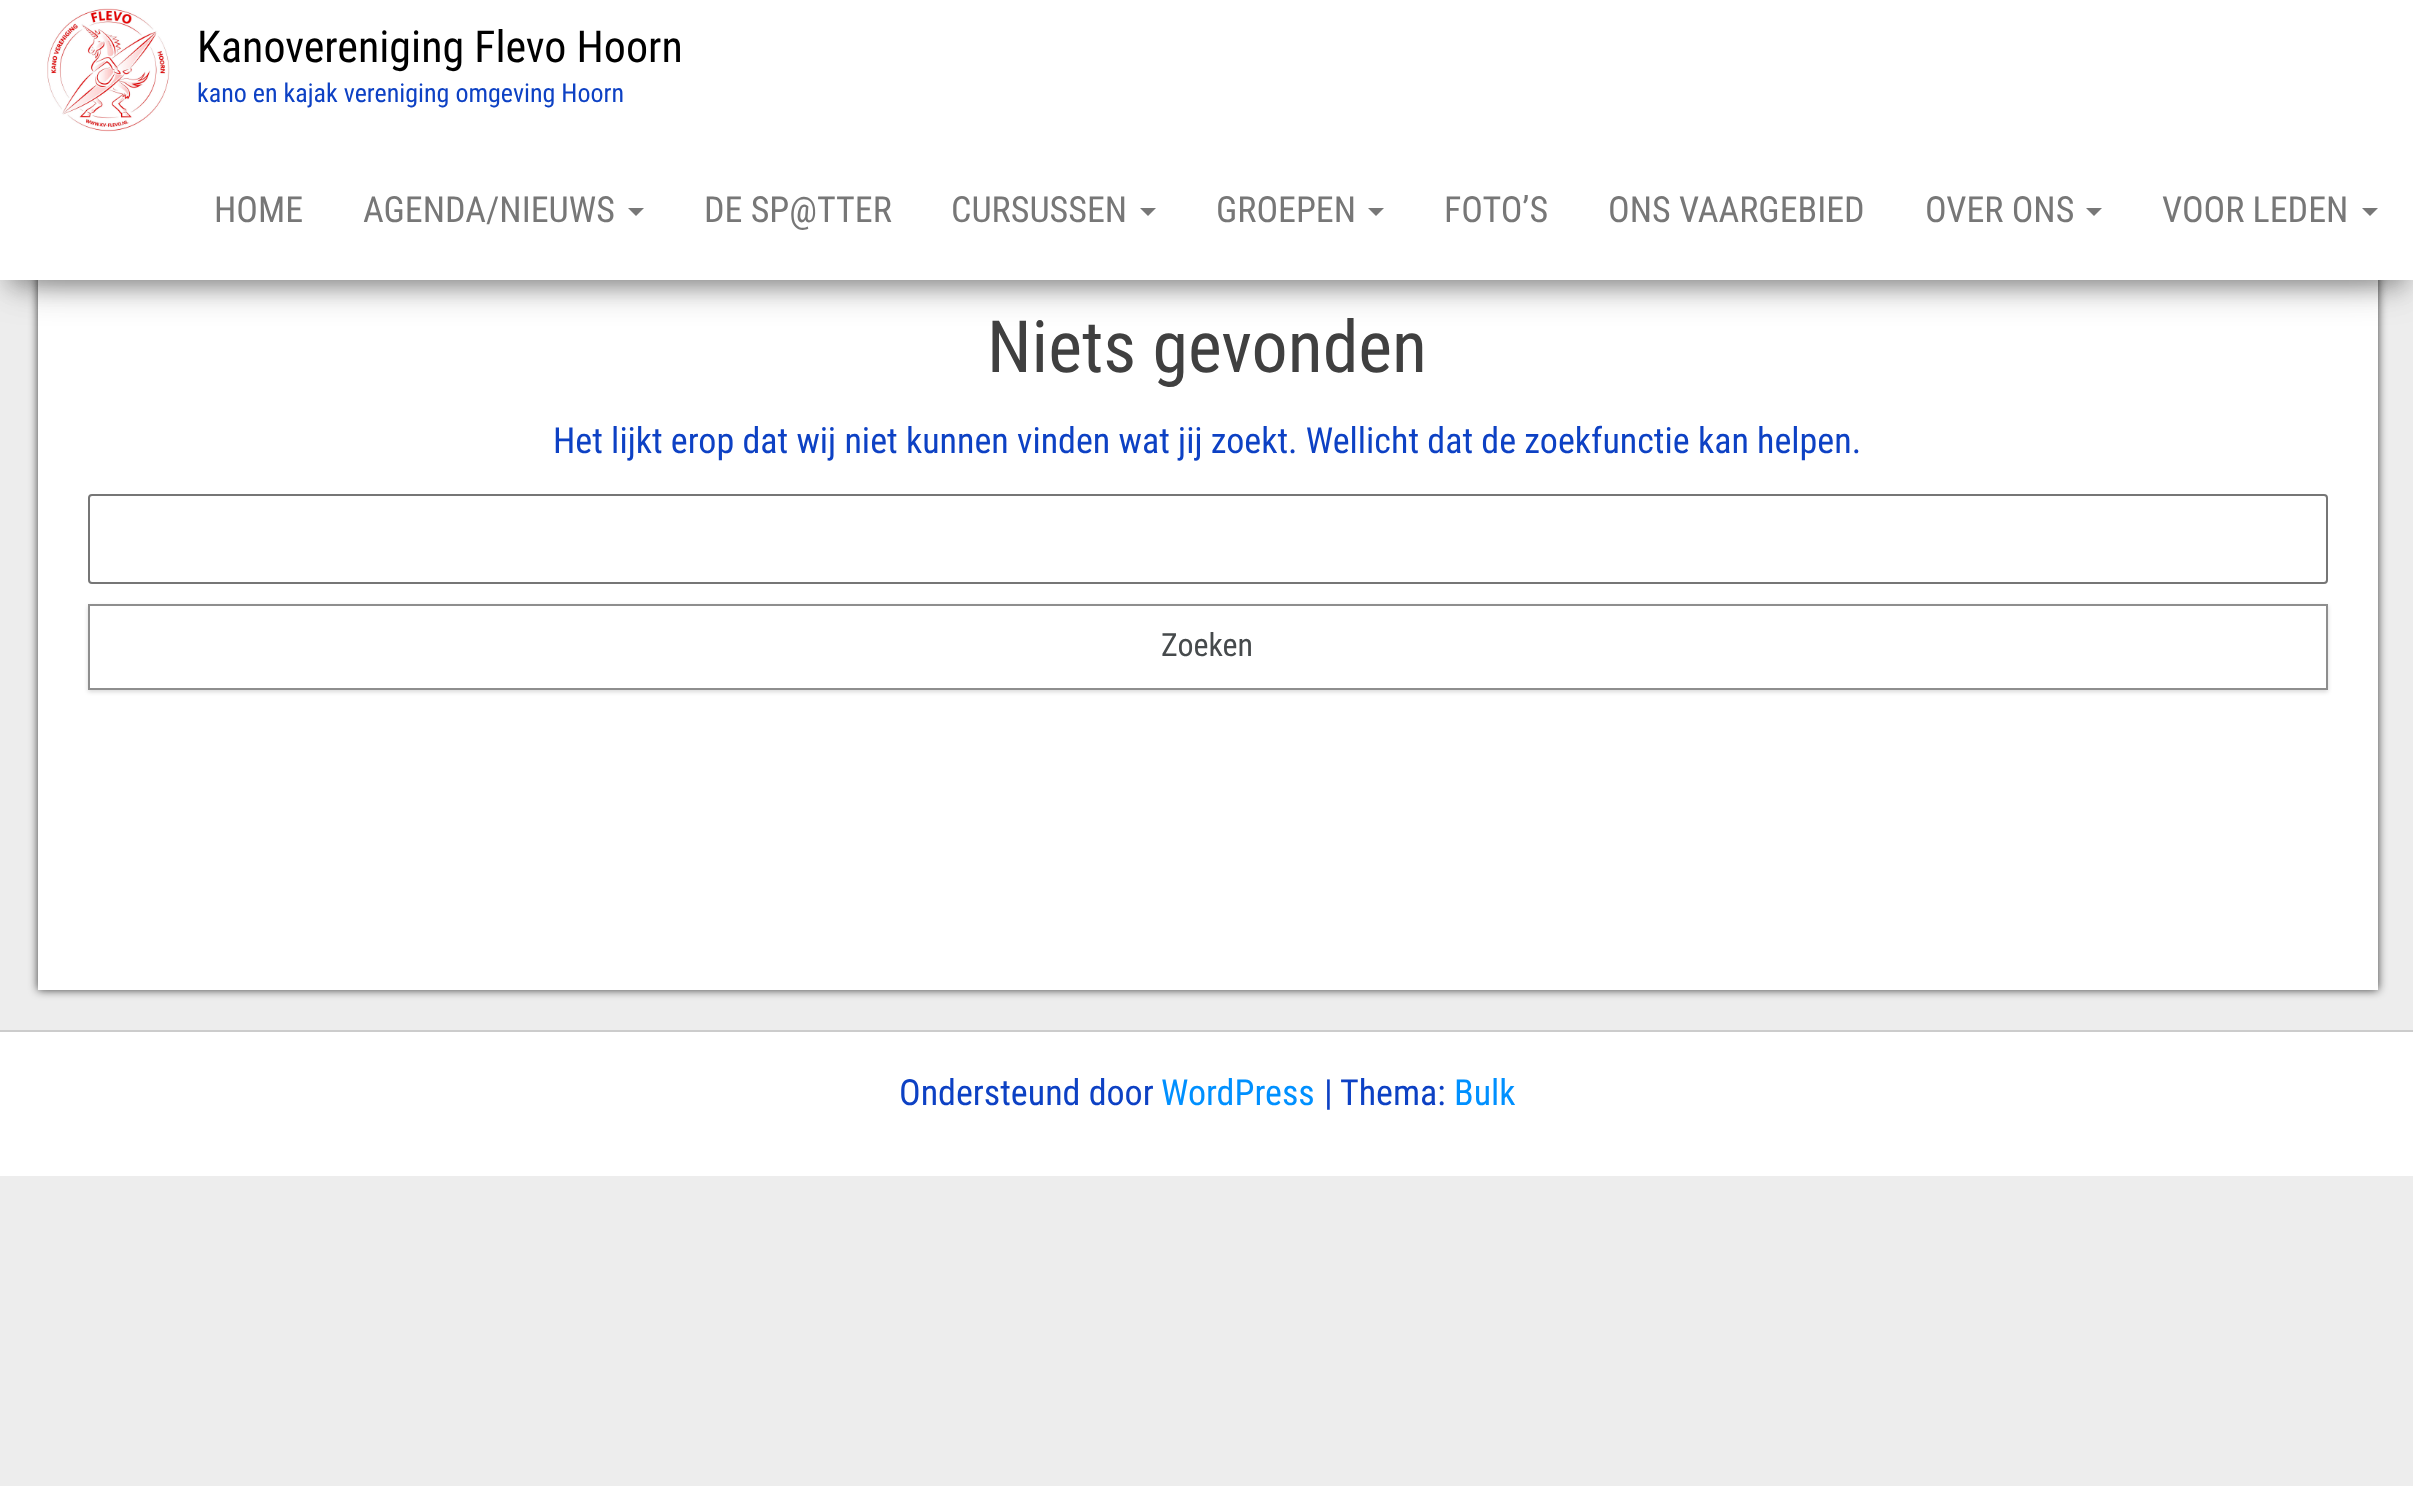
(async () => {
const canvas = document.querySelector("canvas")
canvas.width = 2413
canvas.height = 1486
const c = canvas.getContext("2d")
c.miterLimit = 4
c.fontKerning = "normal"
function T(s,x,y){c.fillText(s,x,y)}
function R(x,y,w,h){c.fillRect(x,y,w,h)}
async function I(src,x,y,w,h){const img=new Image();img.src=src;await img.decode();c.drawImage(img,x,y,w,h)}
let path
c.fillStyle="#ededed"
R(0,0,2413,1486)
c.fillStyle="#000000bf"
c.filter="blur(5px)"
c.beginPath()
c.rect(38,220,2340,770)
c.fill()
c.filter="none"
c.fillStyle="#fff"
R(38,280,2340,710)
c.fillStyle="#00000033"
c.filter="blur(10px)"
c.beginPath()
c.rect(10,26,2394,260)
c.fill()
c.filter="none"
c.fillStyle="#0000001f"
c.filter="blur(20px)"
c.beginPath()
c.rect(0,6,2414,280)
c.fill()
c.filter="none"
c.fillStyle="#0000006b"
c.filter="blur(20px)"
c.beginPath()
c.rect(24,44,2366,232)
c.fill()
c.filter="none"
c.fillStyle="#fff"
R(0,0,2413,280)
await I("1.png",47,8,123,124)
c.font="44px Roboto Condensed"
c.fillStyle="#000"
T("Kanovereniging Flevo Hoorn",197,62)
c.font="26px Roboto Condensed"
c.fillStyle="#0d41c4"
T("kano en kajak vereniging omgeving Hoorn",197,102)
c.font="36px Roboto Condensed"
c.fillStyle="#777"
T("HOME",214,222)
T("AGENDA/NIEUWS",363,222)
path = new Path2D("M628 208h16l-8 8z")
c.fill(path)
T("DE SP@TTER",704,222)
T("CURSUSSEN",951,222)
path = new Path2D("M1140 208h16l-8 8z")
c.fill(path)
T("GROEPEN",1216,222)
path = new Path2D("M1368 208h16l-8 8z")
c.fill(path)
T("FOTO’S",1444,222)
T("ONS VAARGEBIED",1608,222)
T("OVER ONS",1925,222)
path = new Path2D("M2086 208h16l-8 8z")
c.fill(path)
T("VOOR LEDEN",2162,222)
path = new Path2D("M2362 208h16l-8 8z")
c.fill(path)
c.font="72px Roboto Condensed"
c.fillStyle="#404040"
T("Niets gevonden",987,372)
c.font="36px Roboto Condensed"
c.fillStyle="#0d41c4"
T("Het lijkt erop dat wij niet kunnen vinden wat jij zoekt. Wellicht dat de zoekfunctie kan helpen.",553,453)
c.beginPath()
c.roundRect(89,495,2238,88,3)
c.strokeStyle="#767676"
c.lineWidth=2
c.stroke()
c.save()
path = new Path2D("M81 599h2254v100h-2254zm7 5h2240v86h-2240z")
c.clip(path,"evenodd")
c.fillStyle="#00000026"
c.filter="blur(2px)"
c.beginPath()
c.rect(88,606,2240,86)
c.fill()
c.filter="none"
c.restore()
c.strokeStyle="#8e8e8e"
c.strokeRect(89,605,2238,84)
c.font="32px Roboto Condensed"
c.fillStyle="#464a4c"
T("Zoeken",1161,656)
c.fillStyle="#fff"
R(0,1032,2413,144)
c.fillStyle="#ccc"
R(0,1030,2413,2)
c.font="36px Roboto Condensed"
c.fillStyle="#0d41c4"
T("Ondersteund door",899,1105)
c.fillStyle="#0090ff"
T("WordPress",1161,1105)
c.fillStyle="#0d41c4"
T("|",1324,1105)
T("Thema:",1340,1105)
c.fillStyle="#0090ff"
T("Bulk",1454,1105)
})()
